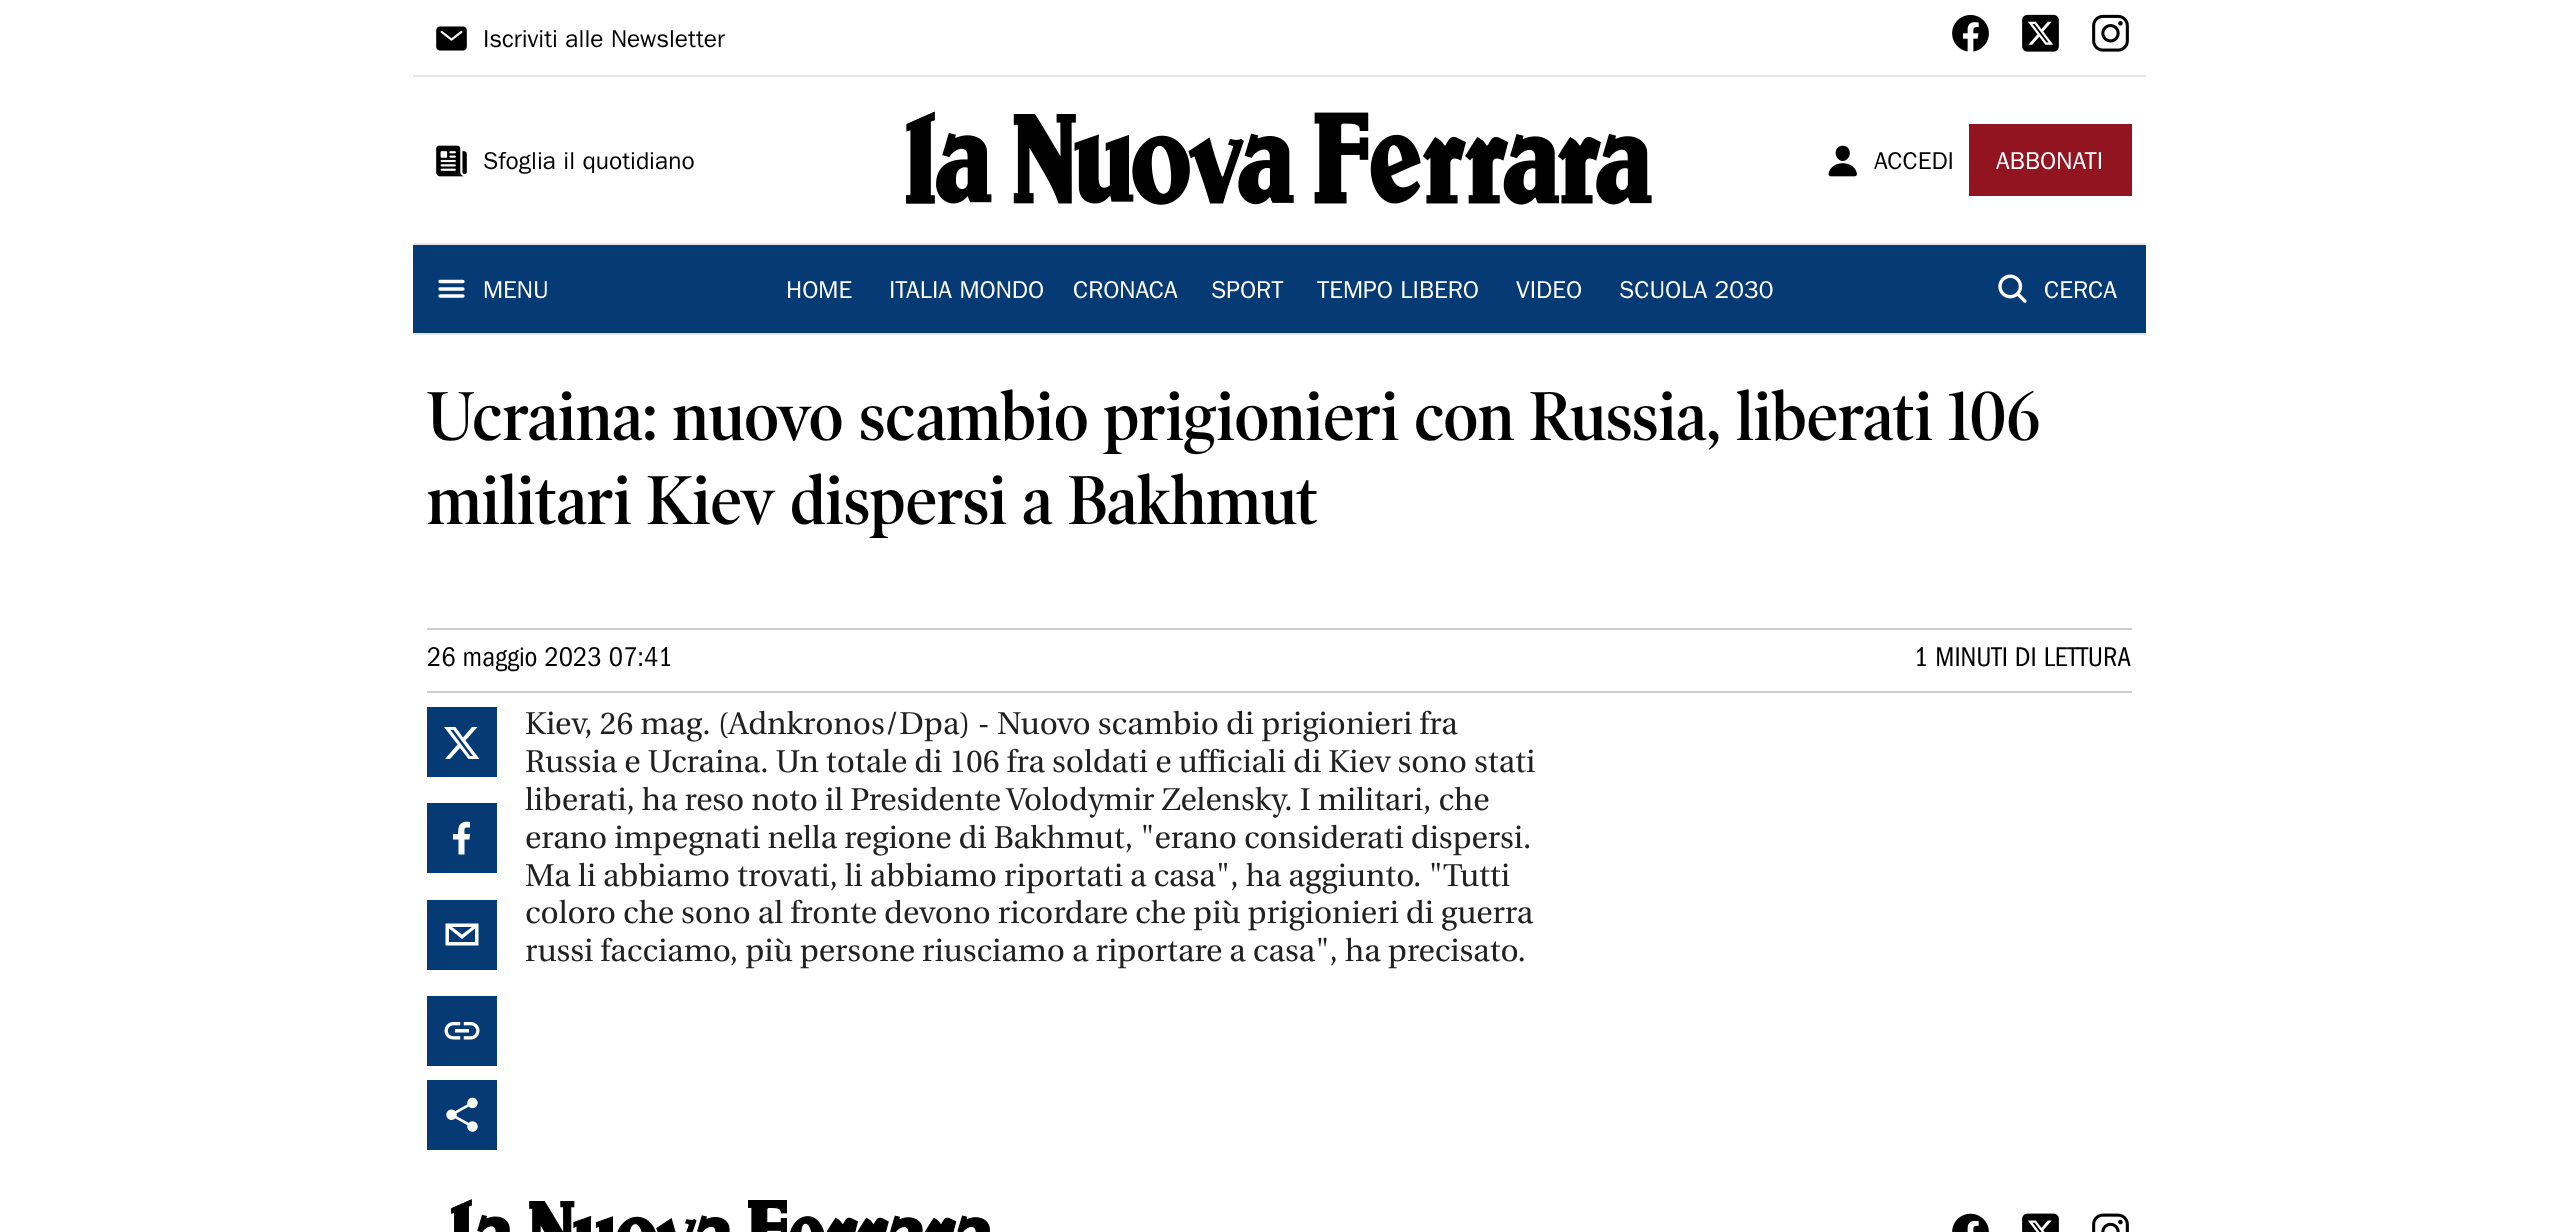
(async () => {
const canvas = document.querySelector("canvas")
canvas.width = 2557
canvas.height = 1232
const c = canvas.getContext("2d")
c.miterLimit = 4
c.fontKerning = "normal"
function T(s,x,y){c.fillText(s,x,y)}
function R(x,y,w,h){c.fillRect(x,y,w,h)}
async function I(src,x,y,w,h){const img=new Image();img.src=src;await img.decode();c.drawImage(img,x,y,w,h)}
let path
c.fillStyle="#fff"
R(0,0,2557,1232)
c.fillStyle="#e6e6e6"
R(413,75,1733,2)
await I("1.png",436,26,31,25)
c.font="24.5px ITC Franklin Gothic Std"
c.fillStyle="#000"
T("Iscriviti alle Newsletter",483,47)
await I("2.png",1952,15,37,37)
await I("3.png",2022,14,37,38)
await I("4.png",2092,14,37,38)
c.fillStyle="#e6e6e6"
R(413,243,1733,2)
await I("5.png",436,145,31,32)
c.fillStyle="#000"
T("Sfoglia il quotidiano",483,169)
await I("6.png",906,111,746,94)
await I("7.png",1828,145,29,32)
T("ACCEDI",1874,169)
c.fillStyle="#921421"
R(1969,124,163,72)
c.fillStyle="#fff"
T("ABBONATI",1996,169)
c.fillStyle="#063a74"
R(413,245,1733,88)
c.fillStyle="#e6e6e6"
R(413,333,1733,2)
path = new Path2D("M440 281.5h23m-23 7.5h23m-23 7h23")
c.strokeStyle="#fff"
c.lineWidth=3.3
c.lineCap="round"
c.stroke(path)
c.fillStyle="#fff"
T("MENU",483,298)
T("HOME",786,298)
T("ITALIA MONDO",889,298)
T("CRONACA",1073,298)
T("SPORT",1211,298)
T("TEMPO LIBERO",1317,298)
T("VIDEO",1516,298)
T("SCUOLA 2030",1619,298)
await I("8.png",1998,274,29,29)
T("CERCA",2044,298)
c.font="600 70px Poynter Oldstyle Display"
c.fillStyle="#000"
T("Ucraina: nuovo scambio prigionieri con Russia, liberati 106",427,440)
T("militari Kiev dispersi a Bakhmut",427,524)
c.fillStyle="#cbcfd3"
R(427,628,1705,2)
R(427,691,1705,2)
c.font="28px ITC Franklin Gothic"
c.fillStyle="#000"
T("26 maggio 2023 07:41",427,666)
T("1 MINUTI DI LETTURA",1914,666)
c.fillStyle="#063a74"
R(427,707,70,70)
c.fillStyle="#fff"
path = new Path2D("M472 727h5.5l-12 13.5l14 18.5h-11l-8.5-11l-10 11h-5l12.5-14.5l-13.5-17.5h11.5l7.5 10.5zm-2 29h3l-19.5-26h-3z")
c.fill(path)
c.fillStyle="#063a74"
R(427,803,70,70)
c.fillStyle="#fff"
path = new Path2D("M464.5 854.5v-15h5l.5-5.5h-5.5c0-6.5-1-6.5 5.5-6.5v-5.5c-4.5-1-10.5 0-11.5 6l-.5 6h-5v5.5h5.5v15z")
c.fill(path)
c.fillStyle="#063a74"
R(427,900,70,70)
c.fillStyle="#fff"
path = new Path2D("M445.5 923.5v22h33v-22zm26.5 3.5l-10 7.5l-10-7.5zm-23 15v-13.5l13 10.5l13-10.5v13.5z")
c.fill(path)
c.fillStyle="#063a74"
R(427,996,70,70)
await I("9.png",444,1022,36,18)
R(427,1080,70,70)
await I("10.png",446,1097,32,35)
c.font="31.5px Utopia"
c.fillStyle="#212121"
T("Kiev, 26 mag. (Adnkronos/Dpa) - Nuovo scambio di prigionieri fra",525,734)
T("Russia e Ucraina. Un totale di 106 fra soldati e ufficiali di Kiev sono stati",525,772)
T("liberati, ha reso noto il Presidente Volodymir Zelensky. I militari, che",525,810)
T("erano impegnati nella regione di Bakhmut, \"erano considerati dispersi.",525,848)
T("Ma li abbiamo trovati, li abbiamo riportati a casa\", ha aggiunto. \"Tutti",525,886)
T("coloro che sono al fronte devono ricordare che più prigionieri di guerra",525,923)
T("russi facciamo, più persone riusciamo a riportare a casa\", ha precisato.",525,961)
await I("11.png",451,1199,539,33)
await I("12.png",1952,1213,37,19)
await I("13.png",2022,1213,37,19)
await I("14.png",2092,1213,37,19)
})()
